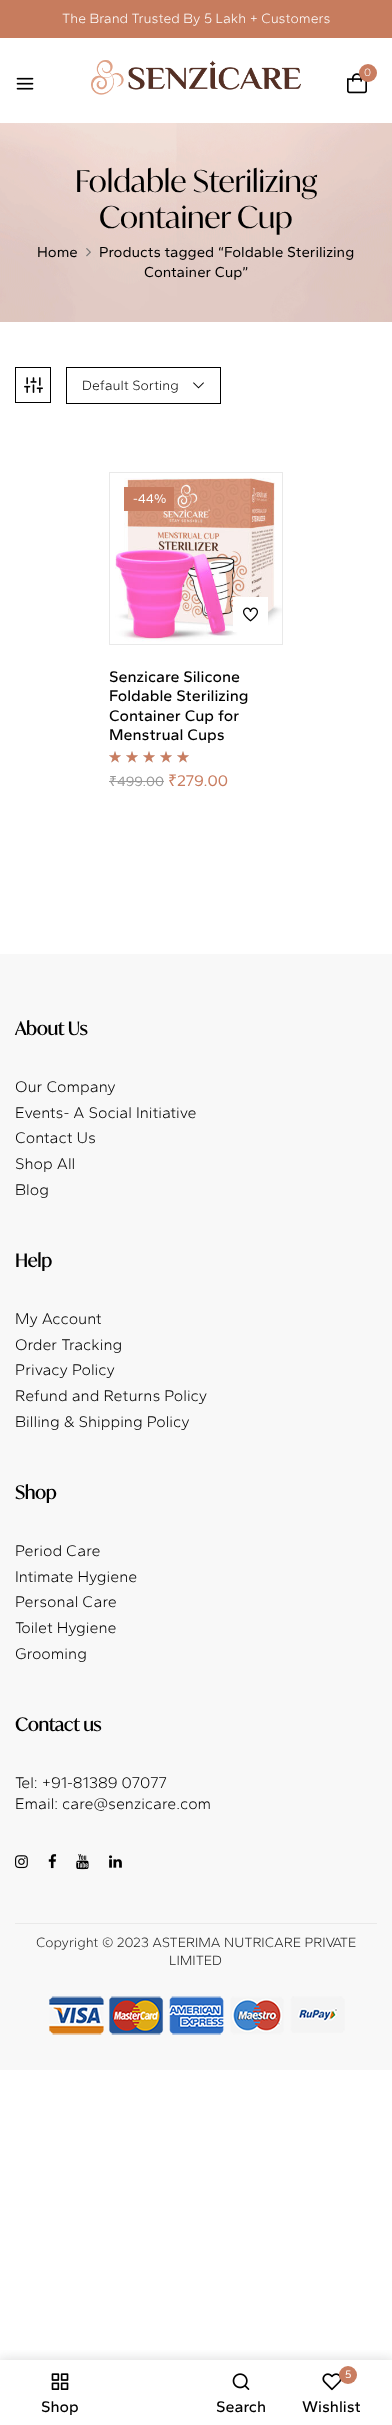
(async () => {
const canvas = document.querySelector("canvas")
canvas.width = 392
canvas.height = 2425
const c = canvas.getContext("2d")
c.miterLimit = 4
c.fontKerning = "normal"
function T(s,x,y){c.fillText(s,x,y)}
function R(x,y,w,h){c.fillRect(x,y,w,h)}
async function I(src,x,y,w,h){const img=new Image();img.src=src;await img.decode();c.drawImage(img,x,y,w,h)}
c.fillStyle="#fff"
R(0,0,392,2425)
c.fillStyle="#c77c5e"
R(0,0,392,38)
c.font="300 14px Gantari"
c.fillStyle="#fff"
T("The Brand Trusted By 5 Lakh + Customers",62,23)
await I("1.png",91,60,210,35)
await I("2.png",347,73,20,21)
c.fillStyle="#c97d60"
c.beginPath()
c.arc(368,73,9,0,7)
c.fill()
c.font="300 11px Gantari"
c.fillStyle="#fff"
T("0",364,76)
await I("3.png",16,77,18,13)
c.save()
c.beginPath()
c.rect(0,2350,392,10)
c.clip()
c.fillStyle="#8f8f8f4d"
c.filter="blur(6px)"
c.beginPath()
c.rect(-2,2359,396,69)
c.fill()
c.filter="none"
c.restore()
await I("4.png",51,2373,18,17)
c.font="500 16px Gantari"
c.fillStyle="#000"
T("Shop",41,2412)
await I("5.png",232,2373,18,17)
T("Search",216,2412)
await I("6.png",322,2373,20,18)
c.fillStyle="#c97d60"
c.beginPath()
c.arc(348,2375,9,0,7)
c.fill()
c.font="11px Gantari"
c.fillStyle="#fff"
T("5",345,2378)
c.font="500 16px Gantari"
c.fillStyle="#000"
T("Wishlist",302,2412)
await I("7.png",0,123,392,199)
c.font="30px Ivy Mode"
T("Foldable Sterilizing",75,192)
T("Container Cup",99,228)
c.font="15px Gantari"
T("Home",37,257)
await I("8.png",86,248,5,9)
T("Products tagged “Foldable Sterilizing",99,257)
T("Container Cup”",144,277)
c.strokeStyle="#000"
c.strokeRect(15.5,367.5,35,35)
await I("9.png",24,377,19,16)
c.strokeRect(66.5,367.5,154,36)
c.font="300 14px Gantari"
T("Default Sorting",82,390)
await I("10.png",193,382,11,7)
c.strokeStyle="#e9e9e9"
c.strokeRect(109.5,472.5,173,172)
await I("11.png",115,478,167,164)
c.fillStyle="#c97d60"
R(124,487,50,24)
c.font="13px Gantari"
c.fillStyle="#fff"
T("-44%",133,503)
R(233,597,35,35)
await I("12.png",243,607,15,15)
c.font="500 16px Gantari"
c.fillStyle="#000"
T("Senzicare Silicone",109,682)
T("Foldable Sterilizing",109,701)
T("Container Cup for",109,721)
T("Menstrual Cups",109,740)
await I("13.png",109,751,80,12)
await I("14.png",109,751,80,12)
c.font="14px Noto Sans"
c.fillStyle="#999"
T("₹",109,786)
c.font="14px Gantari"
T("499.00",117,786)
R(109,781,8,1)
R(117,781,47,1)
c.font="16px Noto Sans"
c.fillStyle="#c97d60"
T("₹",168,786)
c.font="16px Gantari"
T("279.00",177,786)
c.fillStyle="#f8f8f8"
R(0,954,392,1116)
c.font="bold 18px Ivy Mode"
c.fillStyle="#000"
T("About Us",15,1035)
c.font="300 16px Gantari"
T("Our Company",15,1092)
T("Events- A Social Initiative",15,1118)
T("Contact Us",15,1143)
T("Shop All",15,1169)
T("Blog",15,1195)
c.font="bold 18px Ivy Mode"
T("Help",15,1267)
c.font="300 16px Gantari"
T("My Account",15,1324)
T("Order Tracking",15,1350)
T("Privacy Policy",15,1375)
T("Refund and Returns Policy",15,1401)
T("Billing & Shipping Policy",15,1427)
c.font="bold 18px Ivy Mode"
T("Shop",15,1499)
c.font="300 16px Gantari"
T("Period Care",15,1556)
T("Intimate Hygiene",15,1582)
T("Personal Care",15,1607)
T("Toilet Hygiene",15,1633)
T("Grooming",15,1659)
c.font="bold 18px Ivy Mode"
T("Contact us",15,1731)
c.font="300 16px Gantari"
T("Tel: +91-81389 07077",15,1788)
T("Email: care@senzicare.com",15,1809)
await I("15.png",15,1855,13,14)
await I("16.png",48,1854,9,15)
await I("17.png",76,1854,13,16)
await I("18.png",109,1855,13,13)
c.fillStyle="#e9e9e9"
R(15,1923,362,1)
c.font="300 14px Gantari"
c.fillStyle="#222"
T("Copyright © 2023 ASTERIMA NUTRICARE PRIVATE",36,1947)
T("LIMITED",169,1965)
await I("19.png",49,1996,296,39)
})()
